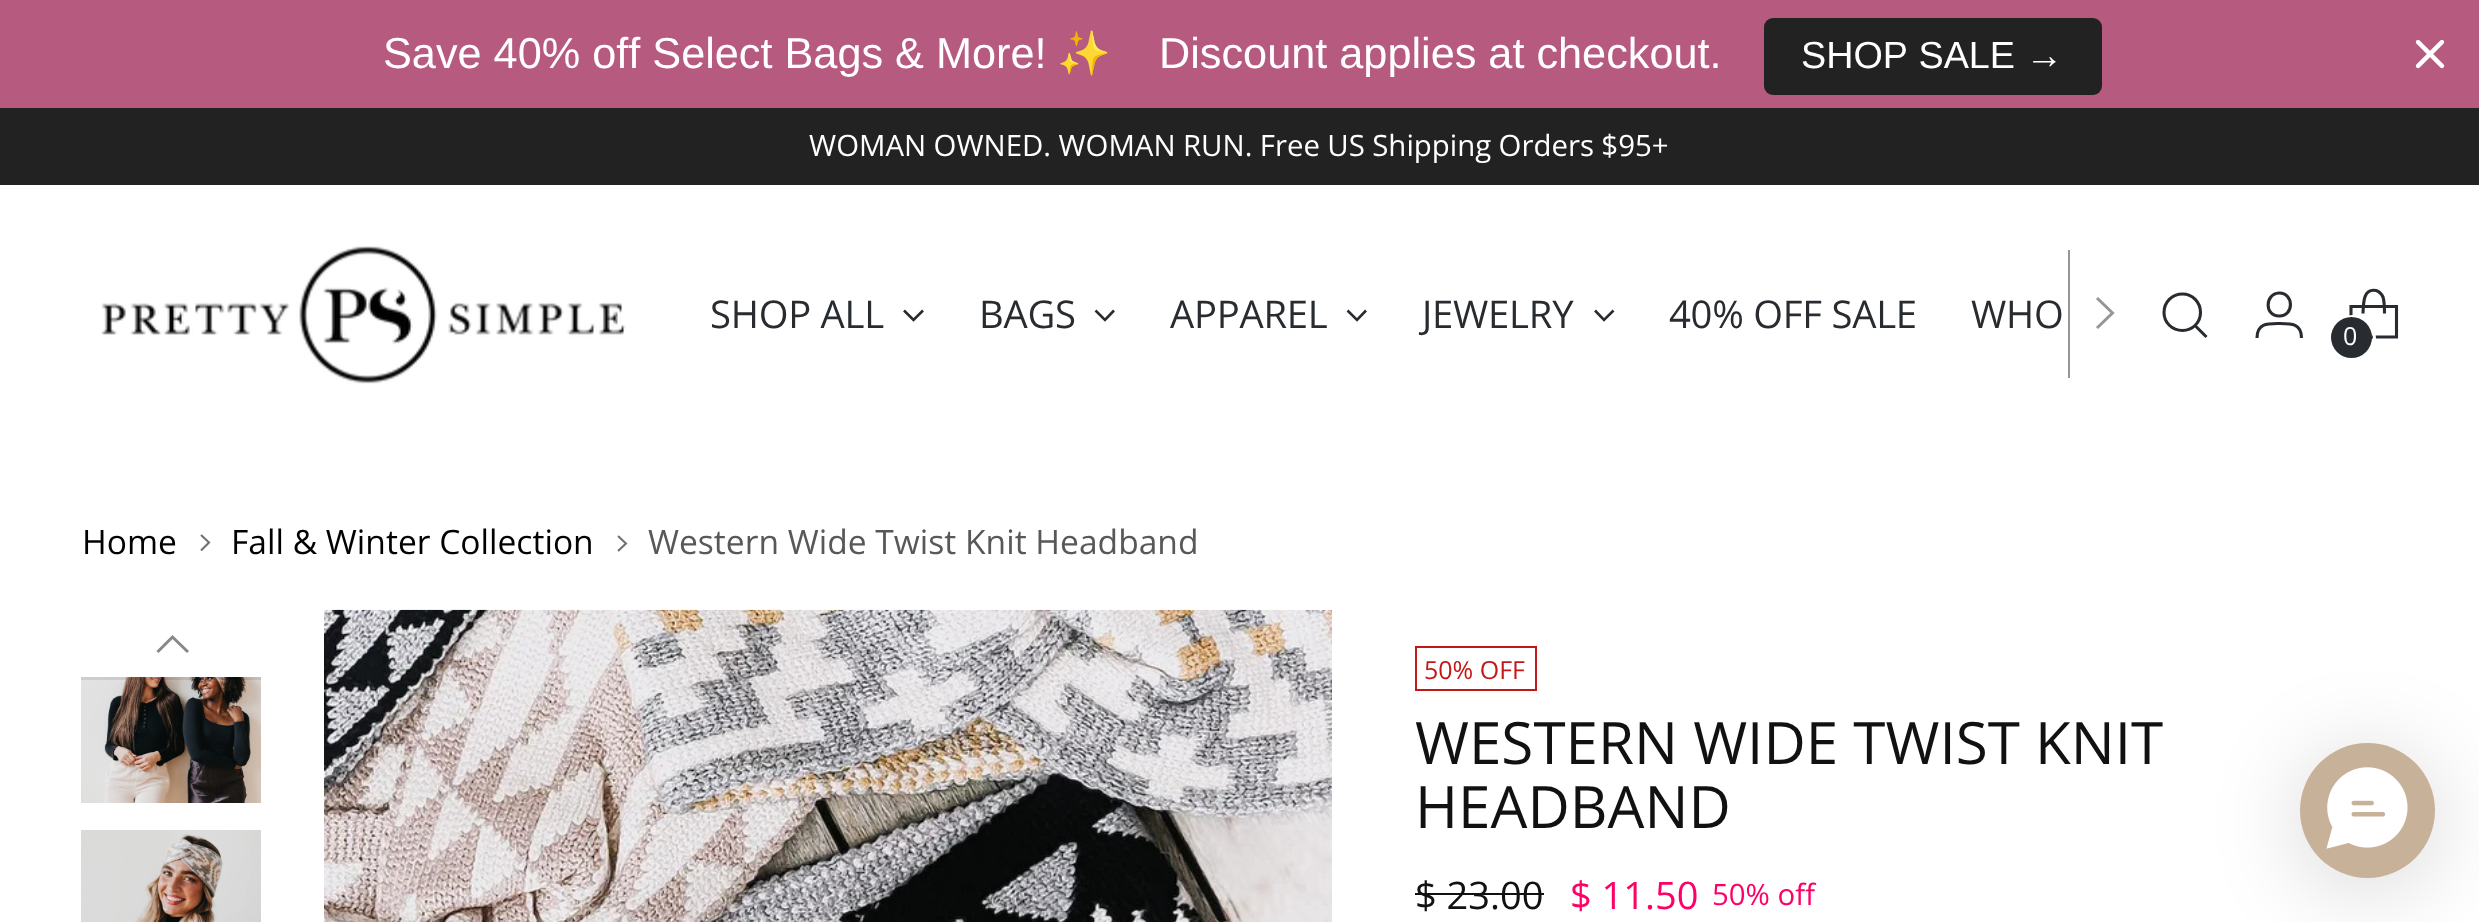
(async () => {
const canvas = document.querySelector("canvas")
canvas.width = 2479
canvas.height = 922
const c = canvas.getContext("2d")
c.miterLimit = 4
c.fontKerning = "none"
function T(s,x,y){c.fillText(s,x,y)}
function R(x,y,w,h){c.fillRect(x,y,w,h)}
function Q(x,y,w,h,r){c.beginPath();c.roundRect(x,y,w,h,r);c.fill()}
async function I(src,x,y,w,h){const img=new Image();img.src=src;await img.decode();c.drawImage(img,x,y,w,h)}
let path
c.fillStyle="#fff"
R(0,0,2479,922)
c.fillStyle="#b65a7f"
R(0,0,2479,108)
c.font="43.25px Liberation Sans"
c.fillStyle="#fff"
T("Save 40% off Select Bags & More!",383,68)
c.font="43.25px Noto Color Emoji"
T("✨",1057,68)
c.font="43.25px Liberation Sans"
T("Discount applies at checkout.",1159,68)
c.fillStyle="#222"
Q(1764,18,338,77,9)
c.font="37.75px Liberation Sans"
c.fillStyle="#fff"
T("SHOP SALE →",1801,68)
await I("1.png",2415,39,30,30)
c.fillStyle="#222"
R(0,108,2479,77)
c.wordSpacing="-0.25px"
c.font="29.4px Open Sans"
c.fillStyle="#fff"
T("WOMAN OWNED. WOMAN RUN. Free US Shipping Orders $95+",809,156)
await I("2.png",101,246,525,138)
c.letterSpacing="-0.25px"
c.wordSpacing="0px"
c.font="38.25px Open Sans"
c.fillStyle="#282c30"
T("SHOP ALL",710,328)
path = new Path2D("M904 310.5l9.5 9.5l9.5-9.5")
c.strokeStyle="#282c30"
c.lineWidth=2.6
c.stroke(path)
T("BAGS",979,328)
path = new Path2D("M1095.5 310.5l9.5 9.5l9-9.5")
c.stroke(path)
T("APPAREL",1170,328)
path = new Path2D("M1347.5 310.5l9.5 9.5l9-9.5")
c.stroke(path)
T("JEWELRY",1422,328)
path = new Path2D("M1595 310.5l9 9.5l9.5-9.5")
c.stroke(path)
T("40% OFF SALE",1669,328)
T("WHO",1971,328)
c.fillStyle="#949698"
R(2068,250,2,128)
path = new Path2D("M2097 328l15.5-15l-15.5-15")
c.strokeStyle="#949698"
c.lineWidth=3
c.stroke(path)
path = new Path2D("M2182.5 330.5c10 0 18-8 18-18c0-10.5-8-18.5-18-18.5c-10.5 0-18.5 8-18.5 18.5c0 10 8 18 18.5 18z")
c.strokeStyle="#282c30"
c.lineWidth=3.1
c.lineCap="round"
c.stroke(path)
path = new Path2D("M2195 325.5l11.5 11.5")
c.lineCap="butt"
c.stroke(path)
path = new Path2D("M2279 316c15.5 .5 15-23.5 0-23c-14.5 1-14.5 23 0 23zm-22 22c0-15 10.5-14.5 22-14.5c12 0 22.5-.5 22.5 14.5")
c.stroke(path)
path = new Path2D("M2384.5 313.5c0-5.5 0-11.5-1.5-16.5c-1.5-3-3.5-5.5-7-6.5c-13.5-2.5-12.5 14.5-13 23")
c.lineJoin="bevel"
c.stroke(path)
path = new Path2D("M2396.5 337v-30.5h-45.5v30.5z")
c.lineJoin="miter"
c.stroke(path)
c.beginPath()
c.arc(2352.5,338.5,22,0,7)
c.strokeStyle="#fff"
c.lineWidth=3
c.stroke()
c.fillStyle="#282c30"
c.beginPath()
c.arc(2351.5,337.5,20.5,0,7)
c.fill()
c.letterSpacing="0px"
c.font="25px Open Sans"
c.fillStyle="#fff"
T("0",2343,345)
c.font="33.6px Open Sans"
c.fillStyle="#000"
T("Home",82,554)
path = new Path2D("M201 550.5l8-8l-8-7.5")
c.strokeStyle="#707070"
c.lineWidth=2.1
c.stroke(path)
T("Fall & Winter Collection",231,554)
path = new Path2D("M618 551l8-7.5l-8-7.5")
c.stroke(path)
c.fillStyle="#585858"
T("Western Wide Twist Knit Headband",648,554)
await I("3.png",81,677,180,126)
c.fillStyle="#00000017"
R(81,677,180,3)
path = new Path2D("M188 652l-15.5-15l-15 15")
c.strokeStyle="#888"
c.lineWidth=3
c.stroke(path)
await I("4.png",81,830,180,92)
await I("5.png",324,609,1008,313)
c.strokeStyle="#c31818"
c.lineWidth=2
c.strokeRect(1416,647,120,43)
c.font="25px Open Sans"
c.fillStyle="#c31818"
T("50% OFF",1424,679)
c.font="58.4px Open Sans"
c.fillStyle="#111"
T("WESTERN WIDE TWIST KNIT",1415,764)
T("HEADBAND",1415,828)
c.font="38px Open Sans"
T("$ 23.00",1415,909)
R(1415,893,129,2)
c.fillStyle="#f06"
T("$ 11.50",1570,909)
c.font="29.4px Open Sans"
T("50% off",1712,905)
c.fillStyle="#00000029"
c.filter="blur(45px)"
c.beginPath()
c.roundRect(2300,754,135,135,67.5)
c.fill()
c.filter="none"
c.fillStyle="#c7b199"
c.beginPath()
c.arc(2367.5,810.5,67.5,0,7)
c.fill()
await I("6.png",2326,767,82,82)
})()
